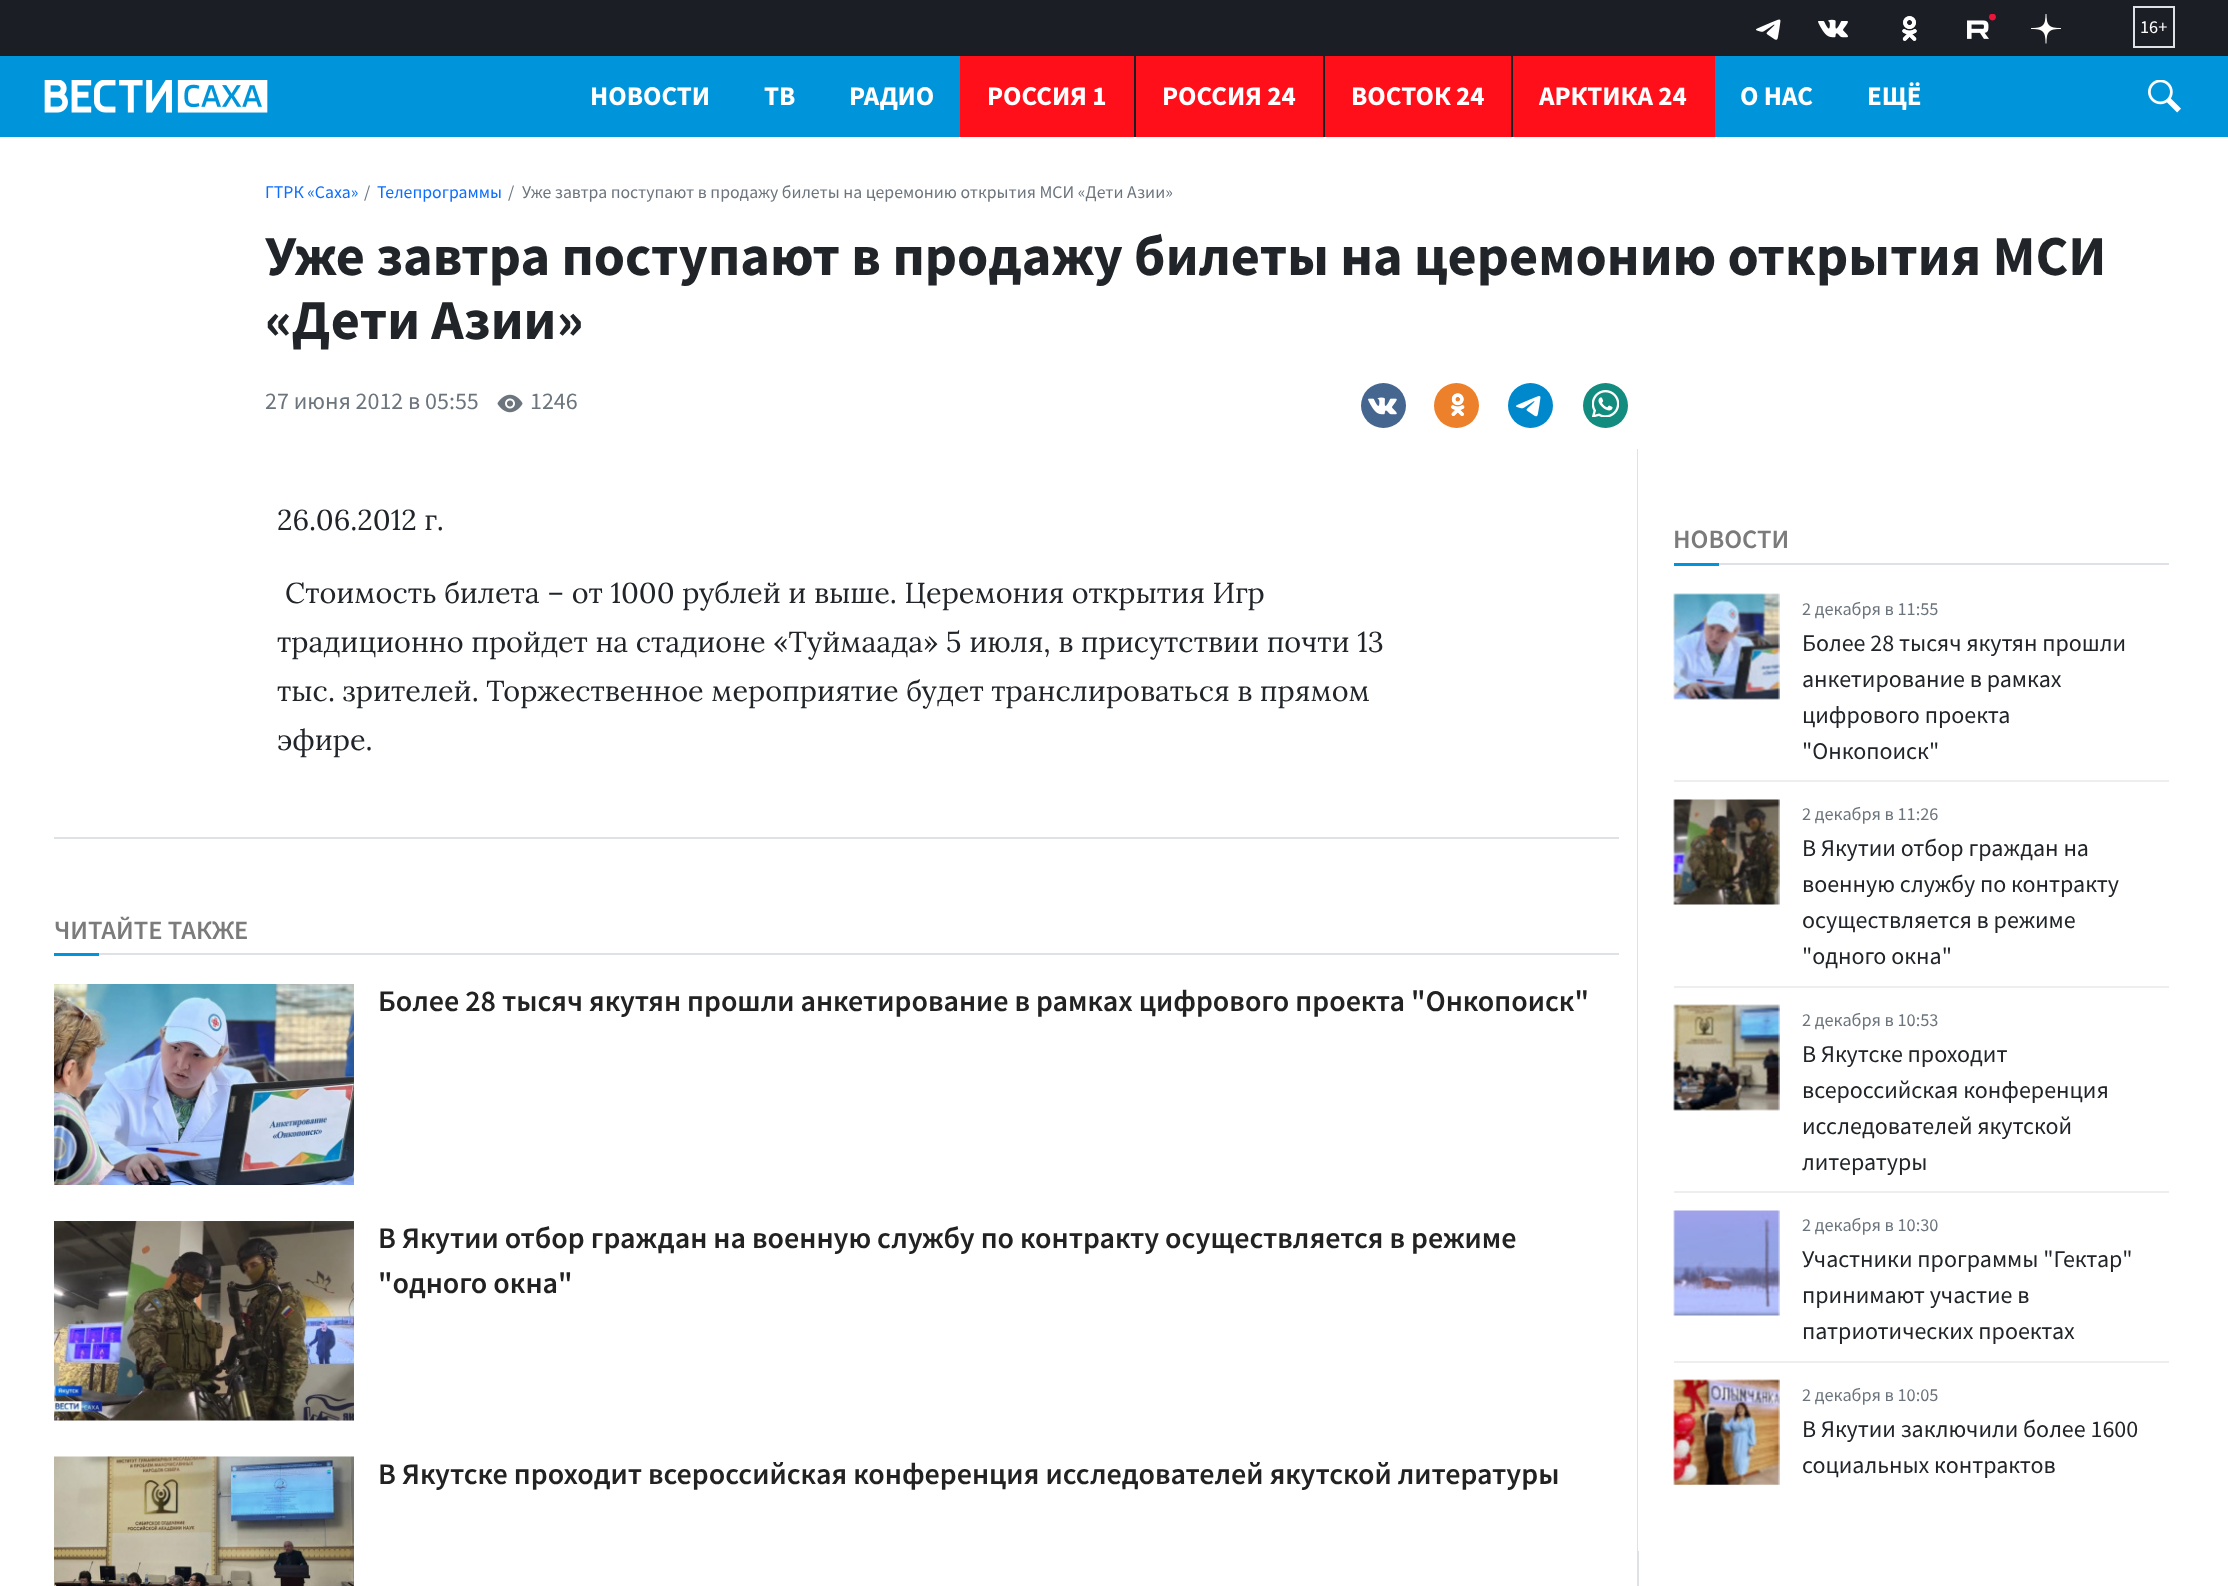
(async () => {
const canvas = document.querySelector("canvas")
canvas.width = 2228
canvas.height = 1586
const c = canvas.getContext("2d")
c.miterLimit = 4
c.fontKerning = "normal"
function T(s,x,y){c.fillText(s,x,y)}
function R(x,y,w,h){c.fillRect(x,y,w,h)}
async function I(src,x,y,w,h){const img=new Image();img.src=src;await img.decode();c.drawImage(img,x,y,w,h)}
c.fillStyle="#fff"
R(0,0,2228,1586)
c.fillStyle="#1c1e26"
R(0,0,2228,56)
await I("1.png",1756,19,25,21)
await I("2.png",1818,19,30,19)
await I("3.png",1902,16,15,25)
await I("4.png",1967,14,29,25)
await I("5.png",2031,14,30,30)
c.strokeStyle="#dee2e6"
c.lineWidth=2
c.strokeRect(2134,7,40,40)
c.font="18.25px Source Sans Pro"
c.fillStyle="#fff"
T("16+",2140,33)
c.fillStyle="#0095da"
R(0,56,2228,81)
await I("6.png",44,80,224,33)
c.font="bold 27px Source Sans Pro"
c.fillStyle="#fff"
T("НОВОСТИ",590,105)
T("ТВ",764,105)
T("РАДИО",849,105)
c.fillStyle="#ff0f19"
R(960,56,174,81)
c.fillStyle="#fff"
T("РОССИЯ 1",987,105)
c.fillStyle="#ff0f19"
R(1136,56,187,81)
c.fillStyle="#1c1e26"
R(1134,56,2,81)
c.fillStyle="#fff"
T("РОССИЯ 24",1162,105)
c.fillStyle="#ff0f19"
R(1325,56,186,81)
c.fillStyle="#1c1e26"
R(1323,56,2,81)
c.fillStyle="#fff"
T("ВОСТОК 24",1351,105)
c.fillStyle="#ff0f19"
R(1513,56,202,81)
c.fillStyle="#1c1e26"
R(1511,56,2,81)
c.fillStyle="#fff"
T("АРКТИКА 24",1539,105)
T("О НАС",1740,105)
T("ЕЩЁ",1867,105)
await I("7.png",2148,80,33,33)
c.font="17.75px Source Sans Pro"
c.fillStyle="#0d6efd"
T("ГТРК «Саха»",265,198)
c.fillStyle="#6c757d"
T("/",364,198)
c.fillStyle="#0d6efd"
T("Телепрограммы",377,198)
c.fillStyle="#6c757d"
T("/",508,198)
T("Уже завтра поступают в продажу билеты на церемонию открытия МСИ «Дети Азии»",522,198)
c.font="bold 56.4px Source Sans Pro"
c.fillStyle="#212529"
T("Уже завтра поступают в продажу билеты на церемонию открытия МСИ",265,275)
T("«Дети Азии»",265,339)
c.font="24px Source Sans Pro"
c.fillStyle="#6c757d"
T("27 июня 2012 в 05:55",265,409)
await I("8.png",497,394,26,19)
T("1246",530,409)
c.fillStyle="#45668e"
c.beginPath()
c.arc(1383.5,405.5,22.5,0,7)
c.fill()
await I("9.png",1368,397,29,18)
c.fillStyle="#ed812b"
c.beginPath()
c.arc(1456.5,405.5,22.5,0,7)
c.fill()
await I("10.png",1451,393,14,23)
c.fillStyle="#08c"
c.beginPath()
c.arc(1530.5,405.5,22.5,0,7)
c.fill()
await I("11.png",1516,396,25,21)
c.fillStyle="#128c7e"
c.beginPath()
c.arc(1605.5,405.5,22.5,0,7)
c.fill()
await I("12.png",1592,390,27,27)
c.font="28.8px Lora"
c.fillStyle="#212529"
T("26.06.2012 г.",277,530)
T("Стоимость билета – от 1000 рублей и выше. Церемония открытия Игр",285,603)
T("традиционно пройдет на стадионе «Туймаада» 5 июля, в присутствии почти 13",277,652)
T("тыс. зрителей. Торжественное мероприятие будет транслироваться в прямом",277,701)
T("эфире.",277,750)
c.fillStyle="#dee2e6"
R(54,837,1565,2)
R(99,953,1520,2)
c.font="600 26.5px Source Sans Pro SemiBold"
c.fillStyle="#7b7b7b"
T("ЧИТАЙТЕ ТАКЖЕ",54,939)
c.fillStyle="#0095da"
R(54,953,45,3)
await I("13.png",54,984,300,201)
c.font="600 30px Source Sans Pro SemiBold"
c.fillStyle="#222"
T("Более 28 тысяч якутян прошли анкетирование в рамках цифрового проекта \"Онкопоиск\"",378,1011)
await I("14.png",54,1221,300,200)
T("В Якутии отбор граждан на военную службу по контракту осуществляется в режиме",378,1248)
T("\"одного окна\"",378,1293)
await I("15.png",54,1456,300,130)
T("В Якутске проходит всероссийская конференция исследователей якутской литературы",378,1484)
c.fillStyle="#dee2e6"
R(1637,449,2,1137)
c.fillStyle="#fff"
R(1638,449,1,1102)
c.fillStyle="#dee2e6"
R(1719,563,450,2)
c.font="600 26.5px Source Sans Pro SemiBold"
c.fillStyle="#7b7b7b"
T("НОВОСТИ",1673,548)
c.fillStyle="#0095da"
R(1674,563,45,3)
c.fillStyle="#eee"
R(1674,780,495,2)
await I("16.png",1673,593,107,107)
c.font="18.25px Source Sans Pro"
c.fillStyle="#6c757d"
T("2 декабря в 11:55",1802,615)
c.font="24px Source Sans Pro"
c.fillStyle="#212529"
T("Более 28 тысяч якутян прошли",1802,651)
T("анкетирование в рамках",1802,687)
T("цифрового проекта",1802,723)
T("\"Онкопоиск\"",1802,759)
c.fillStyle="#eee"
R(1674,986,495,2)
await I("17.png",1673,799,107,106)
c.font="18.25px Source Sans Pro"
c.fillStyle="#6c757d"
T("2 декабря в 11:26",1802,820)
c.font="24px Source Sans Pro"
c.fillStyle="#212529"
T("В Якутии отбор граждан на",1802,856)
T("военную службу по контракту",1802,892)
T("осуществляется в режиме",1802,928)
T("\"одного окна\"",1802,964)
c.fillStyle="#eee"
R(1674,1191,495,2)
await I("18.png",1673,1004,107,107)
c.font="18.25px Source Sans Pro"
c.fillStyle="#6c757d"
T("2 декабря в 10:53",1802,1026)
c.font="24px Source Sans Pro"
c.fillStyle="#212529"
T("В Якутске проходит",1802,1062)
T("всероссийская конференция",1802,1098)
T("исследователей якутской",1802,1134)
T("литературы",1802,1170)
c.fillStyle="#eee"
R(1674,1361,495,2)
await I("19.png",1673,1210,107,106)
c.font="18.25px Source Sans Pro"
c.fillStyle="#6c757d"
T("2 декабря в 10:30",1802,1231)
c.font="24px Source Sans Pro"
c.fillStyle="#212529"
T("Участники программы \"Гектар\"",1802,1267)
T("принимают участие в",1802,1303)
T("патриотических проектах",1802,1339)
await I("20.png",1673,1379,107,106)
c.font="18.25px Source Sans Pro"
c.fillStyle="#6c757d"
T("2 декабря в 10:05",1802,1401)
c.font="24px Source Sans Pro"
c.fillStyle="#212529"
T("В Якутии заключили более 1600",1802,1437)
T("социальных контрактов",1802,1473)
})()
